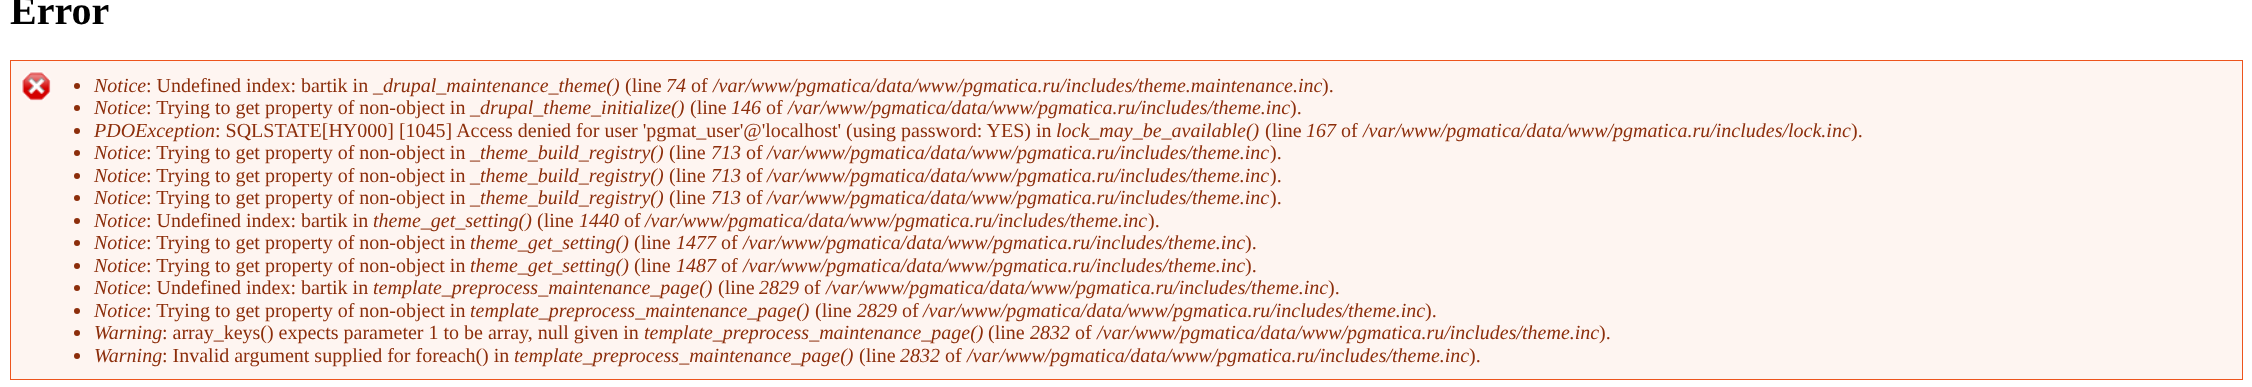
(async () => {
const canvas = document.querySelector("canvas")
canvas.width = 2252
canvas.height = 387
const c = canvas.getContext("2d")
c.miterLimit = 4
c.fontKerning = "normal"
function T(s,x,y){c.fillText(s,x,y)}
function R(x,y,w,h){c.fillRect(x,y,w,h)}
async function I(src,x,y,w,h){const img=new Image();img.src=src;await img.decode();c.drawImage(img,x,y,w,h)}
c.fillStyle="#fff"
R(0,0,2252,387)
c.font="bold 40px Liberation Serif"
c.fillStyle="#000"
T("Error",10,24)
c.fillStyle="#fef5f1"
R(11,61,2231,318)
await I("1.png",21,71,30,30)
c.strokeStyle="#ed541d"
c.strokeRect(10.5,60.5,2232,319)
c.fillStyle="#8c2e0b"
c.beginPath()
c.arc(77,86,3,0,7)
c.fill()
c.font="italic 20px Liberation Serif"
T("Notice",94,92)
c.font="20px Liberation Serif"
T(": Undefined index: bartik in",146,92)
c.font="italic 20px Liberation Serif"
T("_drupal_maintenance_theme()",373,92)
c.font="20px Liberation Serif"
T("(line",625,92)
c.font="italic 20px Liberation Serif"
T("74",666,92)
c.font="20px Liberation Serif"
T("of",691,92)
c.font="italic 20px Liberation Serif"
T("/var/www/pgmatica/data/www/pgmatica.ru/includes/theme.maintenance.inc",713,92)
c.font="20px Liberation Serif"
T(").",1322,92)
c.beginPath()
c.arc(77,108,3,0,7)
c.fill()
c.font="italic 20px Liberation Serif"
T("Notice",94,114)
c.font="20px Liberation Serif"
T(": Trying to get property of non-object in",146,114)
c.font="italic 20px Liberation Serif"
T("_drupal_theme_initialize()",470,114)
c.font="20px Liberation Serif"
T("(line",690,114)
c.font="italic 20px Liberation Serif"
T("146",731,114)
c.font="20px Liberation Serif"
T("of",766,114)
c.font="italic 20px Liberation Serif"
T("/var/www/pgmatica/data/www/pgmatica.ru/includes/theme.inc",788,114)
c.font="20px Liberation Serif"
T(").",1290,114)
c.beginPath()
c.arc(77,131,3,0,7)
c.fill()
c.font="italic 20px Liberation Serif"
T("PDOException",94,137)
c.font="20px Liberation Serif"
T(": SQLSTATE[HY000] [1045] Access denied for user 'pgmat_user'@'localhost' (using password: YES) in",215,137)
c.font="italic 20px Liberation Serif"
T("lock_may_be_available()",1056,137)
c.font="20px Liberation Serif"
T("(line",1265,137)
c.font="italic 20px Liberation Serif"
T("167",1306,137)
c.font="20px Liberation Serif"
T("of",1341,137)
c.font="italic 20px Liberation Serif"
T("/var/www/pgmatica/data/www/pgmatica.ru/includes/lock.inc",1363,137)
c.font="20px Liberation Serif"
T(").",1851,137)
c.beginPath()
c.arc(77,153,3,0,7)
c.fill()
c.font="italic 20px Liberation Serif"
T("Notice",94,159)
c.font="20px Liberation Serif"
T(": Trying to get property of non-object in",146,159)
c.font="italic 20px Liberation Serif"
T("_theme_build_registry()",470,159)
c.font="20px Liberation Serif"
T("(line",669,159)
c.font="italic 20px Liberation Serif"
T("713",711,159)
c.font="20px Liberation Serif"
T("of",746,159)
c.font="italic 20px Liberation Serif"
T("/var/www/pgmatica/data/www/pgmatica.ru/includes/theme.inc",767,159)
c.font="20px Liberation Serif"
T(").",1270,159)
c.beginPath()
c.arc(77,176,3,0,7)
c.fill()
c.font="italic 20px Liberation Serif"
T("Notice",94,182)
c.font="20px Liberation Serif"
T(": Trying to get property of non-object in",146,182)
c.font="italic 20px Liberation Serif"
T("_theme_build_registry()",470,182)
c.font="20px Liberation Serif"
T("(line",669,182)
c.font="italic 20px Liberation Serif"
T("713",711,182)
c.font="20px Liberation Serif"
T("of",746,182)
c.font="italic 20px Liberation Serif"
T("/var/www/pgmatica/data/www/pgmatica.ru/includes/theme.inc",767,182)
c.font="20px Liberation Serif"
T(").",1270,182)
c.beginPath()
c.arc(77,198,3,0,7)
c.fill()
c.font="italic 20px Liberation Serif"
T("Notice",94,204)
c.font="20px Liberation Serif"
T(": Trying to get property of non-object in",146,204)
c.font="italic 20px Liberation Serif"
T("_theme_build_registry()",470,204)
c.font="20px Liberation Serif"
T("(line",669,204)
c.font="italic 20px Liberation Serif"
T("713",711,204)
c.font="20px Liberation Serif"
T("of",746,204)
c.font="italic 20px Liberation Serif"
T("/var/www/pgmatica/data/www/pgmatica.ru/includes/theme.inc",767,204)
c.font="20px Liberation Serif"
T(").",1270,204)
c.beginPath()
c.arc(77,221,3,0,7)
c.fill()
c.font="italic 20px Liberation Serif"
T("Notice",94,227)
c.font="20px Liberation Serif"
T(": Undefined index: bartik in",146,227)
c.font="italic 20px Liberation Serif"
T("theme_get_setting()",373,227)
c.font="20px Liberation Serif"
T("(line",537,227)
c.font="italic 20px Liberation Serif"
T("1440",579,227)
c.font="20px Liberation Serif"
T("of",624,227)
c.font="italic 20px Liberation Serif"
T("/var/www/pgmatica/data/www/pgmatica.ru/includes/theme.inc",645,227)
c.font="20px Liberation Serif"
T(").",1148,227)
c.beginPath()
c.arc(77,243,3,0,7)
c.fill()
c.font="italic 20px Liberation Serif"
T("Notice",94,249)
c.font="20px Liberation Serif"
T(": Trying to get property of non-object in",146,249)
c.font="italic 20px Liberation Serif"
T("theme_get_setting()",470,249)
c.font="20px Liberation Serif"
T("(line",634,249)
c.font="italic 20px Liberation Serif"
T("1477",676,249)
c.font="20px Liberation Serif"
T("of",721,249)
c.font="italic 20px Liberation Serif"
T("/var/www/pgmatica/data/www/pgmatica.ru/includes/theme.inc",743,249)
c.font="20px Liberation Serif"
T(").",1245,249)
c.beginPath()
c.arc(77,266,3,0,7)
c.fill()
c.font="italic 20px Liberation Serif"
T("Notice",94,272)
c.font="20px Liberation Serif"
T(": Trying to get property of non-object in",146,272)
c.font="italic 20px Liberation Serif"
T("theme_get_setting()",470,272)
c.font="20px Liberation Serif"
T("(line",634,272)
c.font="italic 20px Liberation Serif"
T("1487",676,272)
c.font="20px Liberation Serif"
T("of",721,272)
c.font="italic 20px Liberation Serif"
T("/var/www/pgmatica/data/www/pgmatica.ru/includes/theme.inc",743,272)
c.font="20px Liberation Serif"
T(").",1245,272)
c.beginPath()
c.arc(77,288,3,0,7)
c.fill()
c.font="italic 20px Liberation Serif"
T("Notice",94,294)
c.font="20px Liberation Serif"
T(": Undefined index: bartik in",146,294)
c.font="italic 20px Liberation Serif"
T("template_preprocess_maintenance_page()",373,294)
c.font="20px Liberation Serif"
T("(line",718,294)
c.font="italic 20px Liberation Serif"
T("2829",759,294)
c.font="20px Liberation Serif"
T("of",804,294)
c.font="italic 20px Liberation Serif"
T("/var/www/pgmatica/data/www/pgmatica.ru/includes/theme.inc",826,294)
c.font="20px Liberation Serif"
T(").",1328,294)
c.beginPath()
c.arc(77,311,3,0,7)
c.fill()
c.font="italic 20px Liberation Serif"
T("Notice",94,317)
c.font="20px Liberation Serif"
T(": Trying to get property of non-object in",146,317)
c.font="italic 20px Liberation Serif"
T("template_preprocess_maintenance_page()",470,317)
c.font="20px Liberation Serif"
T("(line",815,317)
c.font="italic 20px Liberation Serif"
T("2829",857,317)
c.font="20px Liberation Serif"
T("of",902,317)
c.font="italic 20px Liberation Serif"
T("/var/www/pgmatica/data/www/pgmatica.ru/includes/theme.inc",923,317)
c.font="20px Liberation Serif"
T(").",1425,317)
c.beginPath()
c.arc(77,333,3,0,7)
c.fill()
c.font="italic 20px Liberation Serif"
T("Warning",94,339)
c.font="20px Liberation Serif"
T(": array_keys() expects parameter 1 to be array, null given in",162,339)
c.font="italic 20px Liberation Serif"
T("template_preprocess_maintenance_page()",644,339)
c.font="20px Liberation Serif"
T("(line",988,339)
c.font="italic 20px Liberation Serif"
T("2832",1030,339)
c.font="20px Liberation Serif"
T("of",1075,339)
c.font="italic 20px Liberation Serif"
T("/var/www/pgmatica/data/www/pgmatica.ru/includes/theme.inc",1097,339)
c.font="20px Liberation Serif"
T(").",1599,339)
c.beginPath()
c.arc(77,356,3,0,7)
c.fill()
c.font="italic 20px Liberation Serif"
T("Warning",94,362)
c.font="20px Liberation Serif"
T(": Invalid argument supplied for foreach() in",162,362)
c.font="italic 20px Liberation Serif"
T("template_preprocess_maintenance_page()",514,362)
c.font="20px Liberation Serif"
T("(line",859,362)
c.font="italic 20px Liberation Serif"
T("2832",900,362)
c.font="20px Liberation Serif"
T("of",945,362)
c.font="italic 20px Liberation Serif"
T("/var/www/pgmatica/data/www/pgmatica.ru/includes/theme.inc",967,362)
c.font="20px Liberation Serif"
T(").",1469,362)
})()
